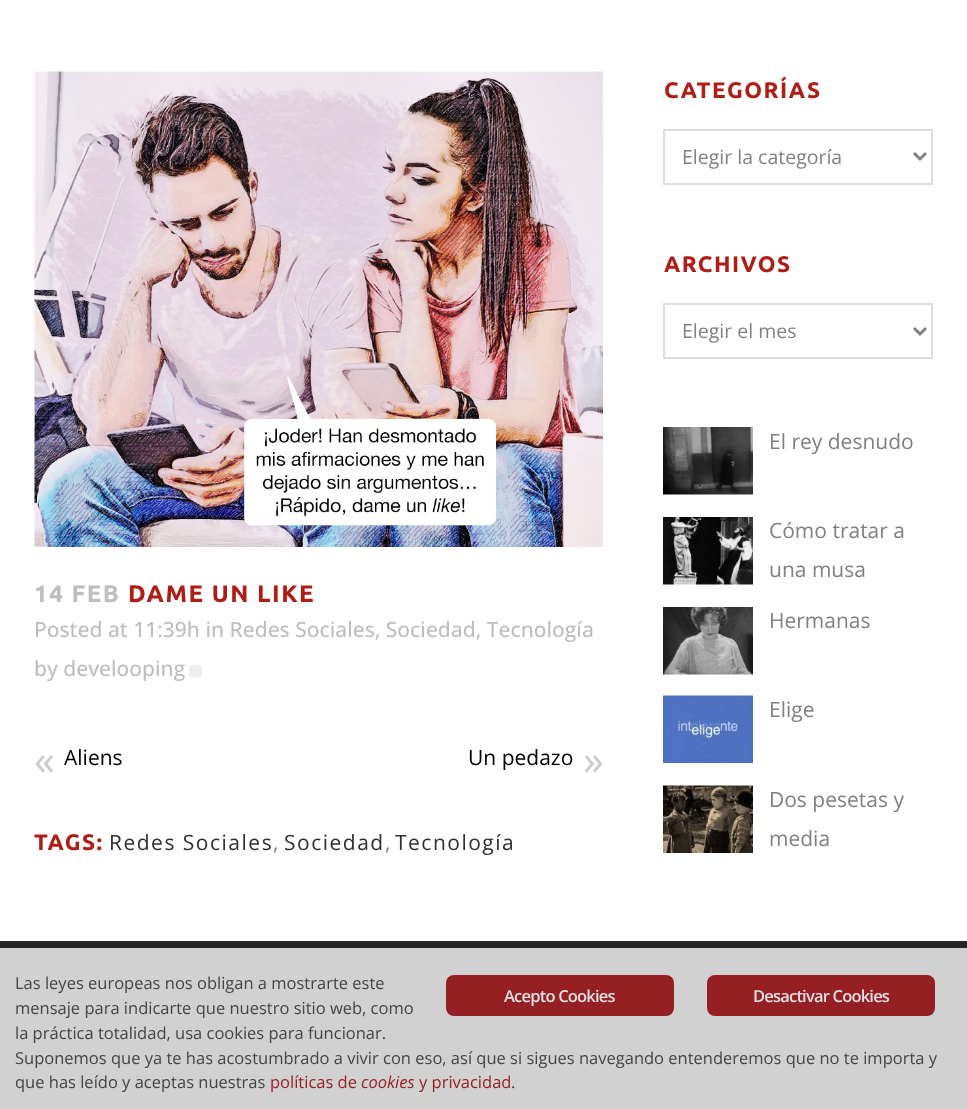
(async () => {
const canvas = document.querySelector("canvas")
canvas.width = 967
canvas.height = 1109
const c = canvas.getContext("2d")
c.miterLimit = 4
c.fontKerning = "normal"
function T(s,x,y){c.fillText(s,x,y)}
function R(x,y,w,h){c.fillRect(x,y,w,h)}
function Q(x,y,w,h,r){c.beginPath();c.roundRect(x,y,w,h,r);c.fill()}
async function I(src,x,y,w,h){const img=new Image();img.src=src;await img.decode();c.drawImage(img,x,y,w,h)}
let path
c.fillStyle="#fff"
R(0,0,967,1109)
await I("1.png",34,71,569,476)
c.letterSpacing="1.5px"
c.font="bold 24px Ubuntu"
c.fillStyle="#bebebe"
T("14 FEB",34,602)
c.fillStyle="#b01d16"
T("DAME UN LIKE",128,602)
c.letterSpacing="0px"
c.font="500 21px Open Sans"
c.fillStyle="#bebebe"
T("Posted at 11:39h in Redes Sociales, Sociedad, Tecnología",34,637)
T("by develooping",34,676)
await I("2.png",189,664,13,14)
c.font="42px Open Sans"
c.fillStyle="#ccc"
T("«",34,775)
c.font="21px Open Sans"
c.fillStyle="#000"
T("Aliens",64,765)
T("Un pedazo",468,765)
c.font="42px Open Sans"
c.fillStyle="#ccc"
T("»",583,775)
c.letterSpacing="1.5px"
c.font="bold 22.5px Ubuntu"
c.fillStyle="#b01d16"
T("TAGS:",34,850)
c.font="21px Open Sans"
c.fillStyle="#303030"
T("Redes Sociales",109,850)
c.letterSpacing="0px"
c.fillStyle="#818181"
T(",",273,850)
c.letterSpacing="1.5px"
c.fillStyle="#303030"
T("Sociedad",284,850)
c.letterSpacing="0px"
c.fillStyle="#818181"
T(",",385,850)
c.letterSpacing="1.5px"
c.fillStyle="#303030"
T("Tecnología",395,850)
c.font="bold 22.5px Ubuntu"
c.fillStyle="#b01d16"
T("CATEGORÍAS",664,98)
c.strokeStyle="#ddd"
c.lineWidth=2
c.strokeRect(664,130,268,54)
path = new Path2D("M914 153l6 6l6-6")
c.strokeStyle="#818181"
c.lineWidth=3
c.stroke(path)
c.letterSpacing="0px"
c.font="19.5px Open Sans"
c.fillStyle="#818181"
T("Elegir la categoría",682,164)
c.letterSpacing="1.5px"
c.font="bold 22.5px Ubuntu"
c.fillStyle="#b01d16"
T("ARCHIVOS",664,272)
c.strokeStyle="#ddd"
c.lineWidth=2
c.strokeRect(664,304,268,54)
path = new Path2D("M914 328l6 6l6-6")
c.strokeStyle="#818181"
c.lineWidth=3
c.stroke(path)
c.letterSpacing="0px"
c.font="19.5px Open Sans"
c.fillStyle="#818181"
T("Elegir el mes",682,338)
await I("3.png",663,427,90,68)
c.font="21px Open Sans"
T("El rey desnudo",769,449)
await I("4.png",663,517,90,68)
T("Cómo tratar a",769,538)
T("una musa",769,577)
await I("5.png",663,607,90,68)
T("Hermanas",769,628)
await I("6.png",663,695,90,68)
T("Elige",769,717)
await I("7.png",663,785,90,68)
T("Dos pesetas y",769,807)
T("media",769,846)
c.fillStyle="#262626"
R(0,941,967,7)
c.fillStyle="#d1d1d1"
R(0,948,967,161)
c.font="16.5px Open Sans"
c.fillStyle="#444"
T("Las leyes europeas nos obligan a mostrarte este",15,989)
T("mensaje para indicarte que nuestro sitio web, como",15,1014)
T("la práctica totalidad, usa cookies para funcionar.",15,1039)
T("Suponemos que ya te has acostumbrado a vivir con eso, así que si sigues navegando entenderemos que no te importa y",15,1064)
T("que has leído y aceptas nuestras",15,1088)
c.fillStyle="#961f24"
T("políticas de",270,1088)
c.font="italic 16.5px Open Sans"
T("cookies",361,1088)
c.font="16.5px Open Sans"
T("y privacidad",419,1088)
c.fillStyle="#444"
T(".",511,1088)
c.fillStyle="#961f24"
Q(446,975,228,41,8)
c.letterSpacing="-0.8px"
c.font="600 16.5px Open Sans"
c.fillStyle="#e1e1e1"
T("Acepto Cookies",504,1002)
c.fillStyle="#961f24"
Q(707,975,228,41,8)
c.fillStyle="#e1e1e1"
T("Desactivar Cookies",753,1002)
})()
